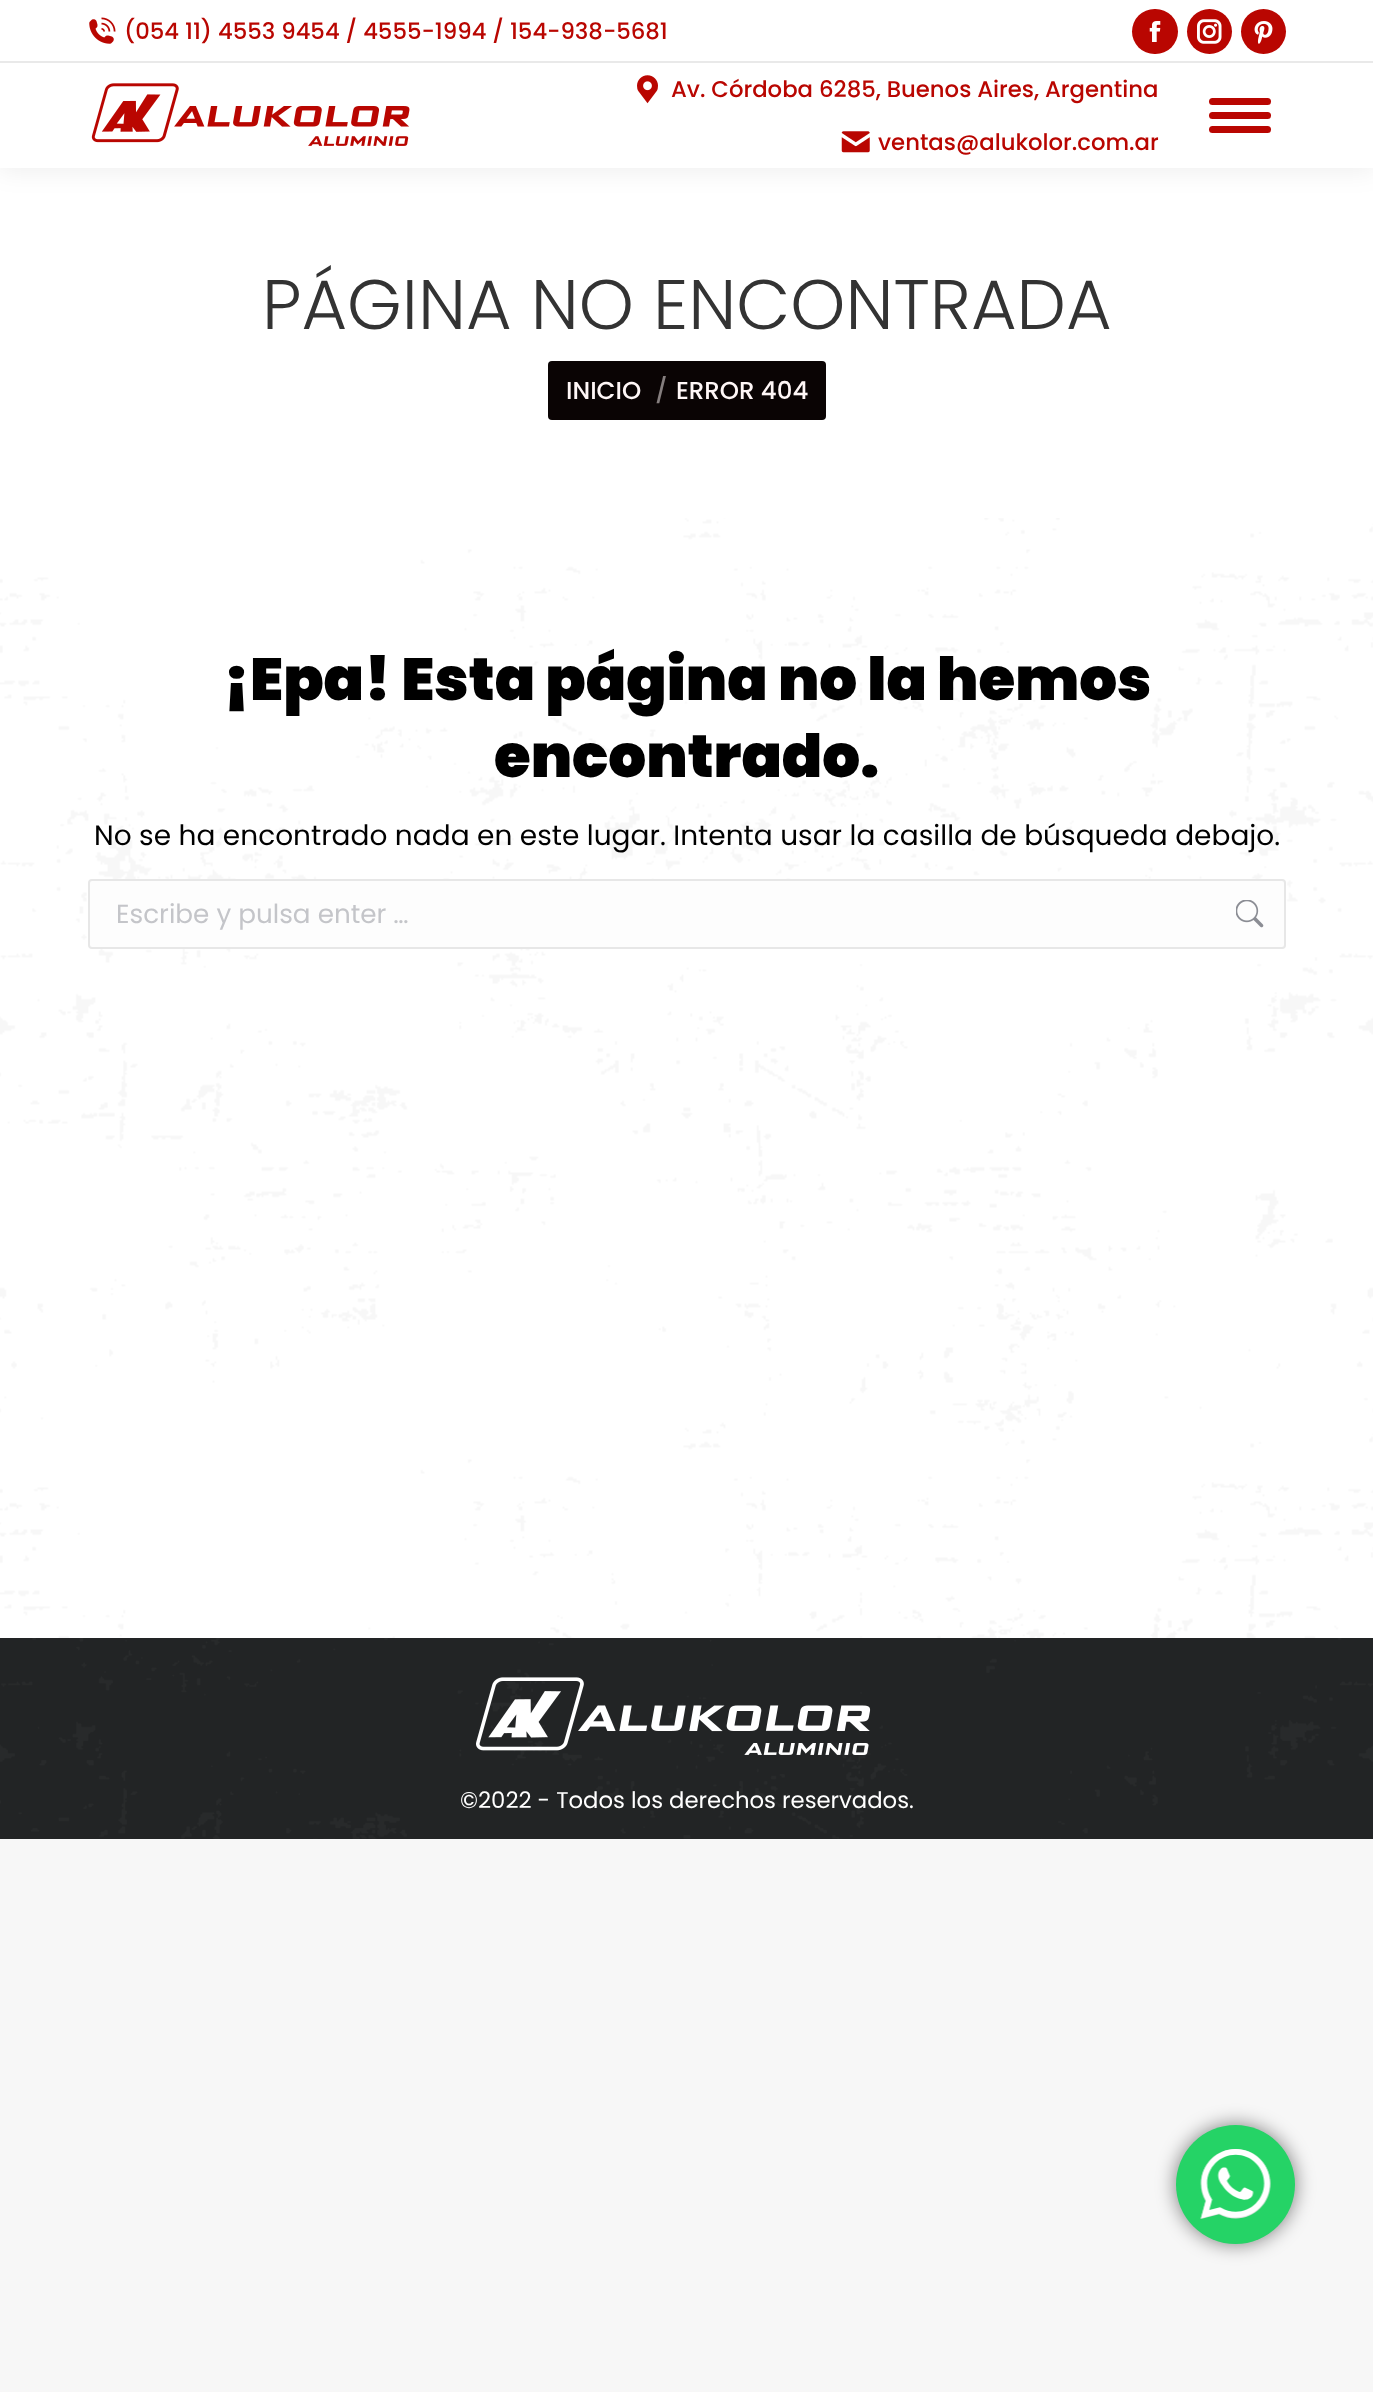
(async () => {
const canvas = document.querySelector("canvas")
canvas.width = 1373
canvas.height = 2392
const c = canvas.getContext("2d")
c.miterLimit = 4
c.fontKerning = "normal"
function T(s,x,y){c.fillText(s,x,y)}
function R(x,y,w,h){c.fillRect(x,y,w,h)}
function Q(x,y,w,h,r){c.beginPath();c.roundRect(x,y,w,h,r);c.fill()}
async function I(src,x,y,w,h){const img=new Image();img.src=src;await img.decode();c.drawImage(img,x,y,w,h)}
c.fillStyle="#f7f7f7"
R(0,0,1373,2392)
c.fillStyle="#fff"
R(0,168,1373,1470)
await I("1.png",0,518,1373,1120)
c.fillStyle="#00000012"
c.filter="blur(13px)"
c.beginPath()
c.rect(-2,-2,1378,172)
c.fill()
c.filter="none"
c.fillStyle="#fff"
R(0,0,1373,168)
await I("2.png",89,17,27,27)
c.font="500 22.75px Poppins"
c.fillStyle="#b90601"
T("(054 11) 4553 9454 / 4555-1994 / 154-938-5681",124,39)
Q(1132,9,46,45,22.5)
await I("3.png",1149,21,12,21)
c.beginPath()
c.arc(1209.5,31.5,22.5,0,7)
c.fill()
await I("4.png",1197,19,25,25)
c.beginPath()
c.arc(1263.5,31.5,22.5,0,7)
c.fill()
await I("5.png",1254,21,19,23)
c.fillStyle="#e9e9e9"
R(0,61,1373,2)
await I("6.png",91,83,319,63)
await I("7.png",637,75,21,29)
c.fillStyle="#b90601"
T("Av. Córdoba 6285, Buenos Aires, Argentina",671,97)
await I("8.png",841,131,29,22)
T("ventas@alukolor.com.ar",878,150)
Q(1209,98,62,7,3.5)
Q(1209,112,62,7,3.5)
Q(1209,126,62,7,3.5)
c.font="300 70px Poppins"
c.fillStyle="#333"
T("PÁGINA NO ENCONTRADA",262,329)
c.fillStyle="#0a0404"
Q(548,361,278,59,4)
c.font="500 24.5px Poppins"
c.fillStyle="#fff7f7"
T("INICIO",566,399)
c.fillStyle="#857e7e"
T("/",655,399)
c.fillStyle="#fff7f7"
T("ERROR 404",676,399)
c.font="900 59.5px Poppins"
c.fillStyle="#000"
T("¡Epa! Esta página no la hemos",223,700)
T("encontrado.",494,777)
c.font="28px Poppins"
T("No se ha encontrado nada en este lugar. Intenta usar la casilla de búsqueda debajo.",94,845)
c.fillStyle="#fdfdfd"
c.beginPath()
c.roundRect(89,880,1196,68,3)
c.fill()
c.strokeStyle="#e7e7e7"
c.lineWidth=2
c.stroke()
c.font="26.25px Poppins"
c.fillStyle="#c4c5c9"
T("Escribe y pulsa enter …",116,923)
await I("9.png",1236,900,28,28)
c.fillStyle="#222425"
R(0,1638,1373,201)
await I("10.png",0,1638,1373,201)
await I("11.png",476,1677,395,78)
c.font="22.75px Poppins"
c.fillStyle="#fff"
T("©2022 - Todos los derechos reservados.",460,1808)
c.fillStyle="#00000080"
c.filter="blur(9.5px)"
c.beginPath()
c.roundRect(1176,2125,119,119,59.5)
c.fill()
c.filter="none"
c.fillStyle="#25d366"
c.beginPath()
c.arc(1235.5,2184.5,59.5,0,7)
c.fill()
await I("12.png",1200,2149,71,70)
})()
